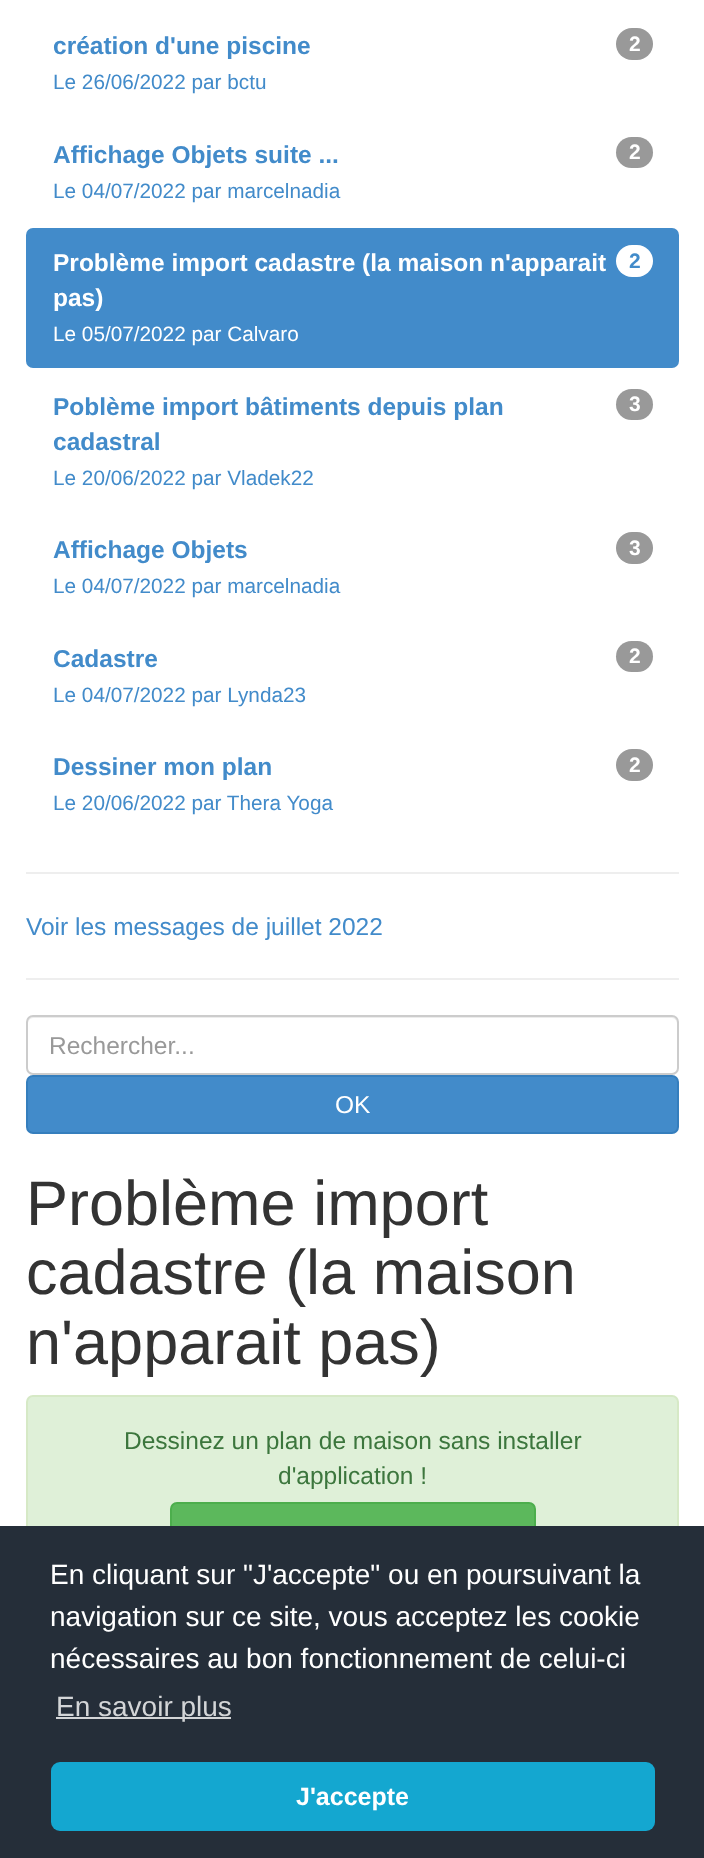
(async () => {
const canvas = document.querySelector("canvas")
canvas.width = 704
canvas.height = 1858
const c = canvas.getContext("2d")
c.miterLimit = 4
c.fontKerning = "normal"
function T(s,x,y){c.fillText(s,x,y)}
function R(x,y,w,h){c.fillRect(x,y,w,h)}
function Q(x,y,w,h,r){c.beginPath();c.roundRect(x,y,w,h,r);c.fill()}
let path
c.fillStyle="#fff"
R(0,0,704,1858)
c.font="bold 24.5px Liberation Sans"
c.fillStyle="#428bca"
T("création d'une piscine",53,54)
c.fillStyle="#999"
Q(616,28,37,32,16)
c.font="bold 21px Liberation Sans"
c.fillStyle="#fff"
T("2",629,51)
c.font="20.75px Liberation Sans"
c.fillStyle="#428bca"
T("Le 26/06/2022 par bctu",53,89)
c.font="bold 24.5px Liberation Sans"
T("Affichage Objets suite ...",53,163)
c.fillStyle="#999"
Q(616,137,37,31,15.5)
c.font="bold 21px Liberation Sans"
c.fillStyle="#fff"
T("2",629,159)
c.font="20.75px Liberation Sans"
c.fillStyle="#428bca"
T("Le 04/07/2022 par marcelnadia",53,198)
Q(26,228,653,140,7)
c.font="bold 24.5px Liberation Sans"
c.fillStyle="#fff"
T("Problème import cadastre (la maison n'apparait",53,271)
Q(616,245,37,32,16)
c.font="bold 21px Liberation Sans"
c.fillStyle="#428bca"
T("2",629,268)
c.font="bold 24.5px Liberation Sans"
c.fillStyle="#fff"
T("pas)",53,306)
c.font="20.75px Liberation Sans"
T("Le 05/07/2022 par Calvaro",53,341)
c.font="bold 24.5px Liberation Sans"
c.fillStyle="#428bca"
T("Poblème import bâtiments depuis plan",53,415)
c.fillStyle="#999"
Q(616,389,37,31,15.5)
c.font="bold 21px Liberation Sans"
c.fillStyle="#fff"
T("3",629,411)
c.font="bold 24.5px Liberation Sans"
c.fillStyle="#428bca"
T("cadastral",53,450)
c.font="20.75px Liberation Sans"
T("Le 20/06/2022 par Vladek22",53,485)
c.font="bold 24.5px Liberation Sans"
T("Affichage Objets",53,558)
c.fillStyle="#999"
Q(616,532,37,32,16)
c.font="bold 21px Liberation Sans"
c.fillStyle="#fff"
T("3",629,555)
c.font="20.75px Liberation Sans"
c.fillStyle="#428bca"
T("Le 04/07/2022 par marcelnadia",53,593)
c.font="bold 24.5px Liberation Sans"
T("Cadastre",53,667)
c.fillStyle="#999"
Q(616,641,37,31,15.5)
c.font="bold 21px Liberation Sans"
c.fillStyle="#fff"
T("2",629,663)
c.font="20.75px Liberation Sans"
c.fillStyle="#428bca"
T("Le 04/07/2022 par Lynda23",53,702)
c.font="bold 24.5px Liberation Sans"
T("Dessiner mon plan",53,775)
c.fillStyle="#999"
Q(616,749,37,32,16)
c.font="bold 21px Liberation Sans"
c.fillStyle="#fff"
T("2",629,772)
c.font="20.75px Liberation Sans"
c.fillStyle="#428bca"
T("Le 20/06/2022 par Thera Yoga",53,810)
c.fillStyle="#eee"
R(26,872,653,2)
c.font="24.5px Liberation Sans"
c.fillStyle="#428bca"
T("Voir les messages de juillet 2022",26,935)
c.fillStyle="#eee"
R(26,978,653,2)
c.fillStyle="#ececec"
path = new Path2D("M33 1018h639c3 0 5 3 5 6v-2c0-3-2-5-5-5h-639c-3 0-5 2-5 5v2c0-3 2-6 5-6z")
c.fill(path)
c.beginPath()
c.roundRect(27,1016,651,58,6)
c.strokeStyle="#ccc"
c.lineWidth=2
c.stroke()
c.fillStyle="#999"
T("Rechercher...",49,1054)
c.fillStyle="#428bca"
c.beginPath()
c.roundRect(27,1076,651,57,6)
c.fill()
c.strokeStyle="#357ebd"
c.stroke()
c.fillStyle="#fff"
T("OK",335,1113)
c.font="63px Liberation Sans"
c.fillStyle="#333"
T("Problème import",26,1225)
T("cadastre (la maison",26,1294)
T("n'apparait pas)",26,1364)
c.fillStyle="#dff0d8"
c.beginPath()
c.roundRect(27,1396,651,192,6)
c.fill()
c.strokeStyle="#d6e9c6"
c.stroke()
c.font="24.5px Liberation Sans"
c.fillStyle="#3c763d"
T("Dessinez un plan de maison sans installer",124,1449)
T("d'application !",278,1484)
c.fillStyle="#5cb85c"
c.beginPath()
c.roundRect(171,1503,364,57,6)
c.fill()
c.strokeStyle="#4cae4c"
c.stroke()
c.fillStyle="#252e39"
R(0,1526,704,332)
c.font="28px Liberation Sans"
c.fillStyle="#fff"
T("En cliquant sur \"J'accepte\" ou en poursuivant la",50,1584)
T("navigation sur ce site, vous acceptez les cookie",50,1626)
T("nécessaires au bon fonctionnement de celui-ci",50,1668)
c.fillStyle="#d3d5d7"
R(56,1717,175,2)
T("En savoir plus",56,1716)
c.fillStyle="#14a7d0"
Q(51,1762,604,69,9)
c.font="bold 25px Liberation Sans"
c.fillStyle="#fff"
T("J'accepte",296,1805)
})()
